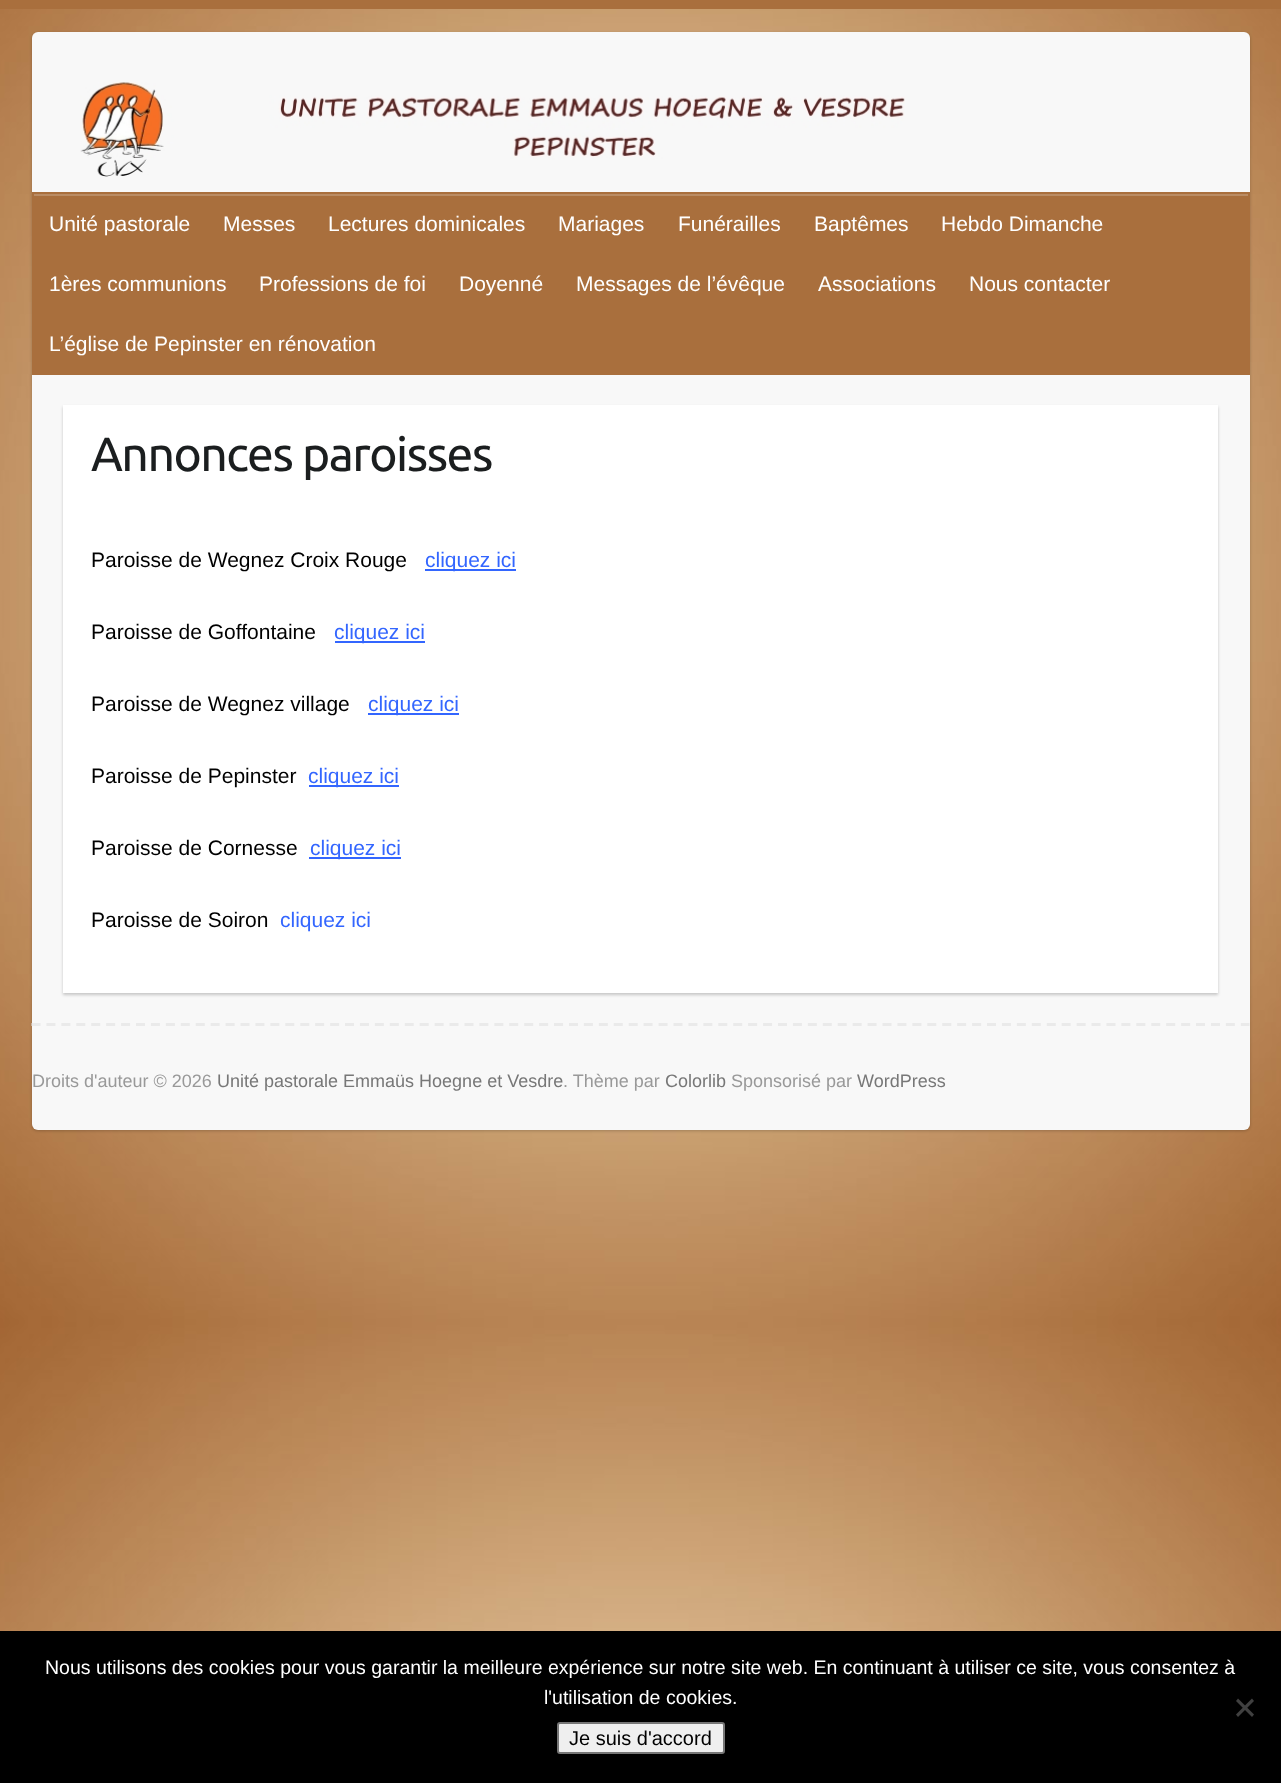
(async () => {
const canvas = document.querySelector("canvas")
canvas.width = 1281
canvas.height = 1783
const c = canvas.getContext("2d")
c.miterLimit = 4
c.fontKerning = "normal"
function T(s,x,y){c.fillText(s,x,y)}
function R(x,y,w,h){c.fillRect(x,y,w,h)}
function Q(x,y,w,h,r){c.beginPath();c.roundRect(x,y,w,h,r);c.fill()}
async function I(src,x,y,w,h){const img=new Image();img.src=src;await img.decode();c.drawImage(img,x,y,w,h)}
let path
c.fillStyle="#fff"
R(0,0,1281,1783)
await I("1.png",0,9,1281,1622)
c.fillStyle="#a96f3d"
R(0,0,1281,9)
c.fillStyle="#00000033"
c.filter="blur(1.5px)"
c.beginPath()
c.roundRect(32,33,1218,1098,6)
c.fill()
c.filter="none"
c.fillStyle="#f8f8f8"
Q(32,32,1218,1098,6)
await I("2.png",80,82,825,95)
c.fillStyle="#a96f3d"
R(34,196,1214,177)
c.fillStyle="#ba8c64"
R(33,194,1215,2)
c.strokeStyle="#a96f3d"
c.lineWidth=2
c.strokeRect(33,193,1216,181)
c.font="21px Liberation Sans"
c.fillStyle="#fff"
T("Unité pastorale",49,231)
T("Messes",223,231)
T("Lectures dominicales",328,231)
T("Mariages",558,231)
T("Funérailles",678,231)
T("Baptêmes",814,231)
T("Hebdo Dimanche",941,231)
T("1ères communions",49,291)
T("Professions de foi",259,291)
T("Doyenné",459,291)
T("Messages de l’évêque",576,291)
T("Associations",818,291)
T("Nous contacter",969,291)
T("L’église de Pepinster en rénovation",49,351)
c.fillStyle="#00000033"
c.filter="blur(1.5px)"
c.beginPath()
c.rect(63,407,1155,588)
c.fill()
c.filter="none"
c.fillStyle="#fff"
R(63,405,1155,588)
c.letterSpacing="-1.5px"
c.font="48px Ubuntu"
c.fillStyle="#1b1e1f"
T("Annonces paroisses",91,471)
c.letterSpacing="0px"
c.font="21px Liberation Sans"
c.fillStyle="#000"
T("Paroisse de Wegnez Croix Rouge",91,567)
c.fillStyle="#36f"
R(425,569,91,2)
T("cliquez ici",425,567)
c.fillStyle="#000"
T("Paroisse de Goffontaine",91,639)
c.fillStyle="#36f"
R(335,641,90,2)
T("cliquez ici",334,639)
c.fillStyle="#000"
T("Paroisse de Wegnez village",91,711)
c.fillStyle="#36f"
R(368,713,91,2)
T("cliquez ici",368,711)
c.fillStyle="#000"
T("Paroisse de Pepinster",91,783)
c.fillStyle="#36f"
R(309,785,90,2)
T("cliquez ici",308,783)
c.fillStyle="#000"
T("Paroisse de Cornesse",91,855)
c.fillStyle="#36f"
R(309,857,92,2)
T("cliquez ici",310,855)
c.fillStyle="#000"
T("Paroisse de Soiron",91,927)
c.fillStyle="#36f"
T("cliquez ici",280,927)
path = new Path2D("M31.5 1024.5h1218")
c.strokeStyle="#eaeaea"
c.lineWidth=3
c.setLineDash([9,5.93])
c.stroke(path)
c.font="18px Liberation Sans"
c.fillStyle="#999"
T("Droits d'auteur © 2026",32,1087)
c.fillStyle="#777"
T("Unité pastorale Emmaüs Hoegne et Vesdre",217,1087)
c.fillStyle="#999"
T(". Thème par",563,1087)
c.fillStyle="#777"
T("Colorlib",665,1087)
c.fillStyle="#999"
T("Sponsorisé par",731,1087)
c.fillStyle="#777"
T("WordPress",857,1087)
c.fillStyle="#000"
R(0,1631,1281,152)
c.font="19.5px Liberation Sans"
c.fillStyle="#fff"
T("Nous utilisons des cookies pour vous garantir la meilleure expérience sur notre site web. En continuant à utiliser ce site, vous consentez à",45,1674)
T("l'utilisation de cookies.",544,1704)
c.fillStyle="#404040"
path = new Path2D("M1252 1698.5l2 2.5l-16 16l-2-2.5z")
c.fill(path)
path = new Path2D("M1236 1701l2-2.5l16 16l-2 2.5z")
c.fill(path)
c.fillStyle="#efefef"
c.beginPath()
c.roundRect(558,1723,166,30,2)
c.fill()
c.strokeStyle="#767676"
c.lineWidth=2
c.setLineDash([])
c.stroke()
c.font="20px Liberation Sans"
c.fillStyle="#000"
T("Je suis d'accord",569,1745)
})()
